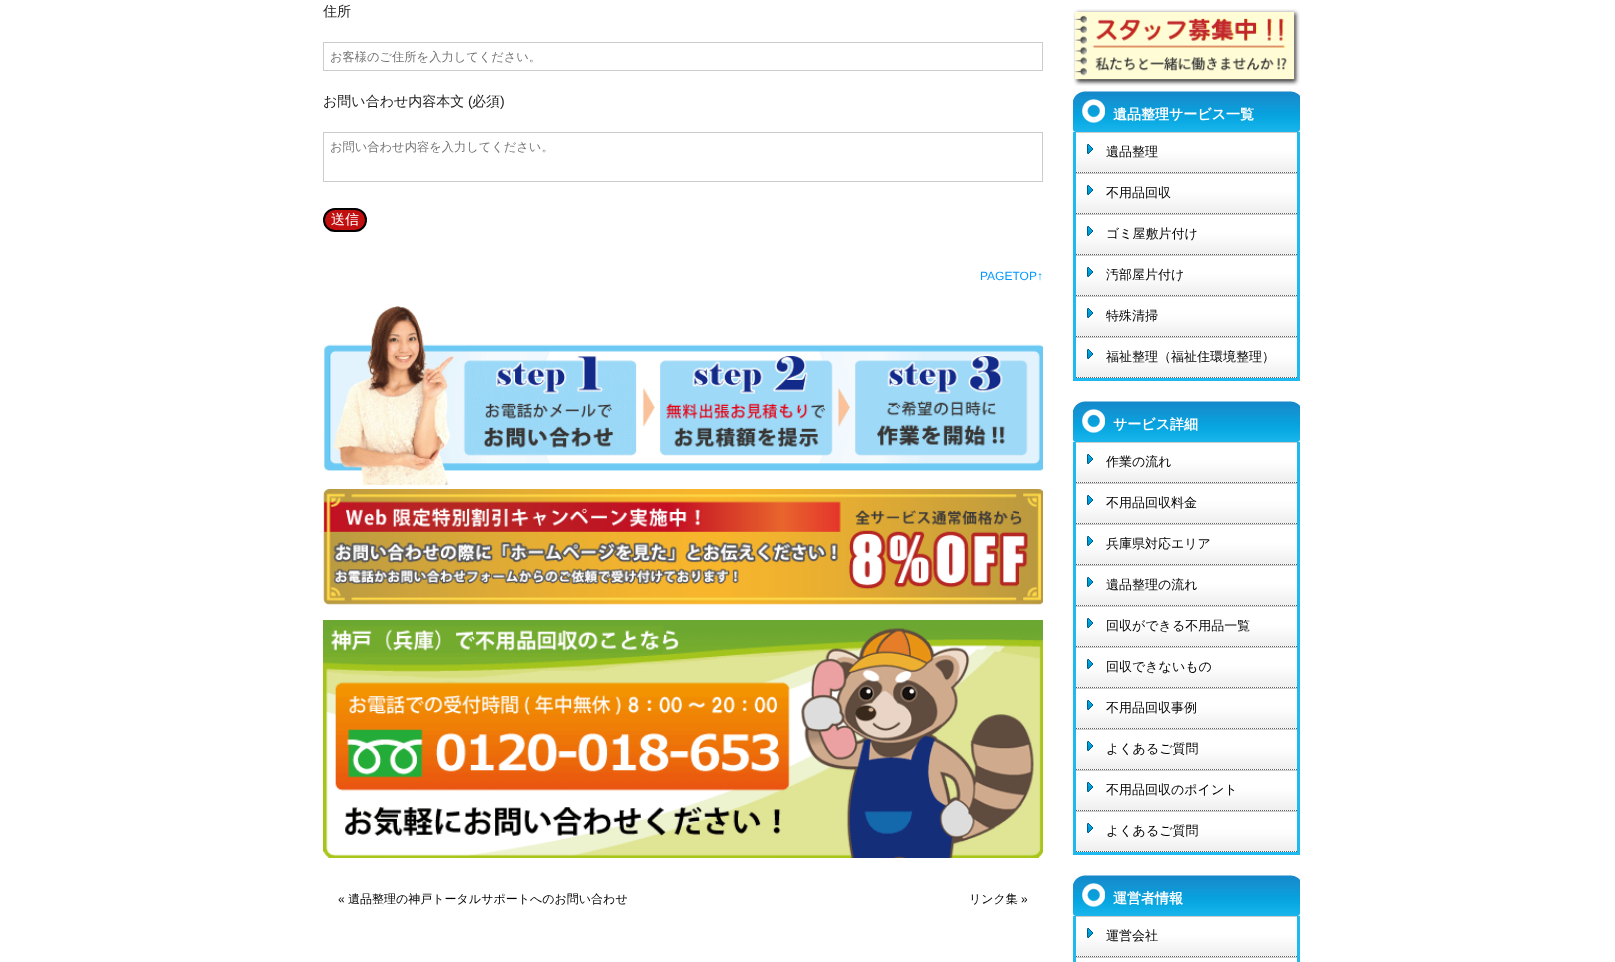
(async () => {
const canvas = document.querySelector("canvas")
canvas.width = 1615
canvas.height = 962
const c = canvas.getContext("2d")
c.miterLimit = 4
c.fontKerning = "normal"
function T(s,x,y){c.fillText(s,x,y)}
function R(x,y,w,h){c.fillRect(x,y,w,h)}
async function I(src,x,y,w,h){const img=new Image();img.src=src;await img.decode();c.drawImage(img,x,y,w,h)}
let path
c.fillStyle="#fff"
R(0,0,1615,962)
c.font="500 14px WenQuanYi Zen Hei"
c.fillStyle="#222"
T("住所",323,16)
c.strokeStyle="#ccc"
c.strokeRect(323.5,42.5,719,28)
c.font="500 12.25px WenQuanYi Zen Hei"
c.fillStyle="#757575"
T("お客様のご住所を入力してください。",330,61)
c.font="500 14px WenQuanYi Zen Hei"
c.fillStyle="#222"
T("お問い合わせ内容本文",323,106)
c.font="14px Liberation Sans"
T("(",468,106)
c.font="500 14px WenQuanYi Zen Hei"
T("必須",472,106)
c.font="14px Liberation Sans"
T(")",500,106)
c.strokeRect(323.5,132.5,719,49)
c.font="500 12.25px WenQuanYi Zen Hei"
c.fillStyle="#757575"
T("お問い合わせ内容を入力してください。",330,151)
c.fillStyle="#c10f0f"
c.beginPath()
c.roundRect(324,209,42,22,11)
c.fill()
c.strokeStyle="#000"
c.lineWidth=2
c.stroke()
c.font="500 14px WenQuanYi Zen Hei"
c.fillStyle="#fff"
T("送信",331,224)
c.font="12px Liberation Sans"
c.fillStyle="#09f"
T("PAGETOP↑",980,280)
await I("1.png",324,306,719,179)
await I("2.png",323,489,720,116)
await I("3.png",323,620,720,238)
c.fillStyle="#000"
T("«",338,903)
c.font="500 12px WenQuanYi Zen Hei"
T("遺品整理の神戸トータルサポートへのお問い合わせ",348,903)
T("リンク集",969,903)
c.font="12px Liberation Sans"
T("»",1021,903)
await I("4.png",1073,9,227,77)
await I("5.png",1073,91,227,41)
c.font="bold 14px WenQuanYi Zen Hei"
c.fillStyle="#fff"
T("遺品整理サービス一覧",1113,119)
c.fillStyle="#1eb9ee"
R(1297,132,3,249)
R(1073,378,227,3)
R(1073,132,3,249)
path = new Path2D("M1076 172.5h221")
c.strokeStyle="#5e5e5e"
c.lineWidth=1
c.setLineDash([1,1])
c.stroke(path)
await I("6.png",1076,132,221,40)
c.font="500 13px WenQuanYi Zen Hei"
c.fillStyle="#000"
T("遺品整理",1106,156)
path = new Path2D("M1076 213.5h221")
c.stroke(path)
await I("6.png",1076,173,221,40)
T("不用品回収",1106,197)
path = new Path2D("M1076 254.5h221")
c.stroke(path)
await I("6.png",1076,214,221,40)
T("ゴミ屋敷片付け",1106,238)
path = new Path2D("M1076 295.5h221")
c.stroke(path)
await I("6.png",1076,255,221,40)
T("汚部屋片付け",1106,279)
path = new Path2D("M1076 336.5h221")
c.stroke(path)
await I("6.png",1076,296,221,40)
T("特殊清掃",1106,320)
path = new Path2D("M1076 377.5h221")
c.stroke(path)
await I("6.png",1076,337,221,40)
T("福祉整理（福祉住環境整理）",1106,361)
await I("5.png",1073,401,227,41)
c.font="bold 14px WenQuanYi Zen Hei"
c.fillStyle="#fff"
T("サービス詳細",1113,429)
c.fillStyle="#1eb9ee"
R(1297,442,3,413)
R(1073,852,227,3)
R(1073,442,3,413)
path = new Path2D("M1076 482.5h221")
c.stroke(path)
await I("6.png",1076,442,221,40)
c.font="500 13px WenQuanYi Zen Hei"
c.fillStyle="#000"
T("作業の流れ",1106,466)
path = new Path2D("M1076 523.5h221")
c.stroke(path)
await I("6.png",1076,483,221,40)
T("不用品回収料金",1106,507)
path = new Path2D("M1076 564.5h221")
c.stroke(path)
await I("6.png",1076,524,221,40)
T("兵庫県対応エリア",1106,548)
path = new Path2D("M1076 605.5h221")
c.stroke(path)
await I("6.png",1076,565,221,40)
T("遺品整理の流れ",1106,589)
path = new Path2D("M1076 646.5h221")
c.stroke(path)
await I("6.png",1076,606,221,40)
T("回収ができる不用品一覧",1106,630)
path = new Path2D("M1076 687.5h221")
c.stroke(path)
await I("6.png",1076,647,221,40)
T("回収できないもの",1106,671)
path = new Path2D("M1076 728.5h221")
c.stroke(path)
await I("6.png",1076,688,221,40)
T("不用品回収事例",1106,712)
path = new Path2D("M1076 769.5h221")
c.stroke(path)
await I("6.png",1076,729,221,40)
T("よくあるご質問",1106,753)
path = new Path2D("M1076 810.5h221")
c.stroke(path)
await I("6.png",1076,770,221,40)
T("不用品回収のポイント",1106,794)
path = new Path2D("M1076 851.5h221")
c.stroke(path)
await I("6.png",1076,811,221,40)
T("よくあるご質問",1106,835)
await I("5.png",1073,875,227,41)
c.font="bold 14px WenQuanYi Zen Hei"
c.fillStyle="#fff"
T("運営者情報",1113,903)
c.fillStyle="#1eb9ee"
R(1297,916,3,46)
R(1073,916,3,46)
path = new Path2D("M1076 956.5h221")
c.stroke(path)
await I("6.png",1076,916,221,40)
c.font="500 13px WenQuanYi Zen Hei"
c.fillStyle="#000"
T("運営会社",1106,940)
c.fillStyle="#ccc"
R(1076,957,221,1)
})()
